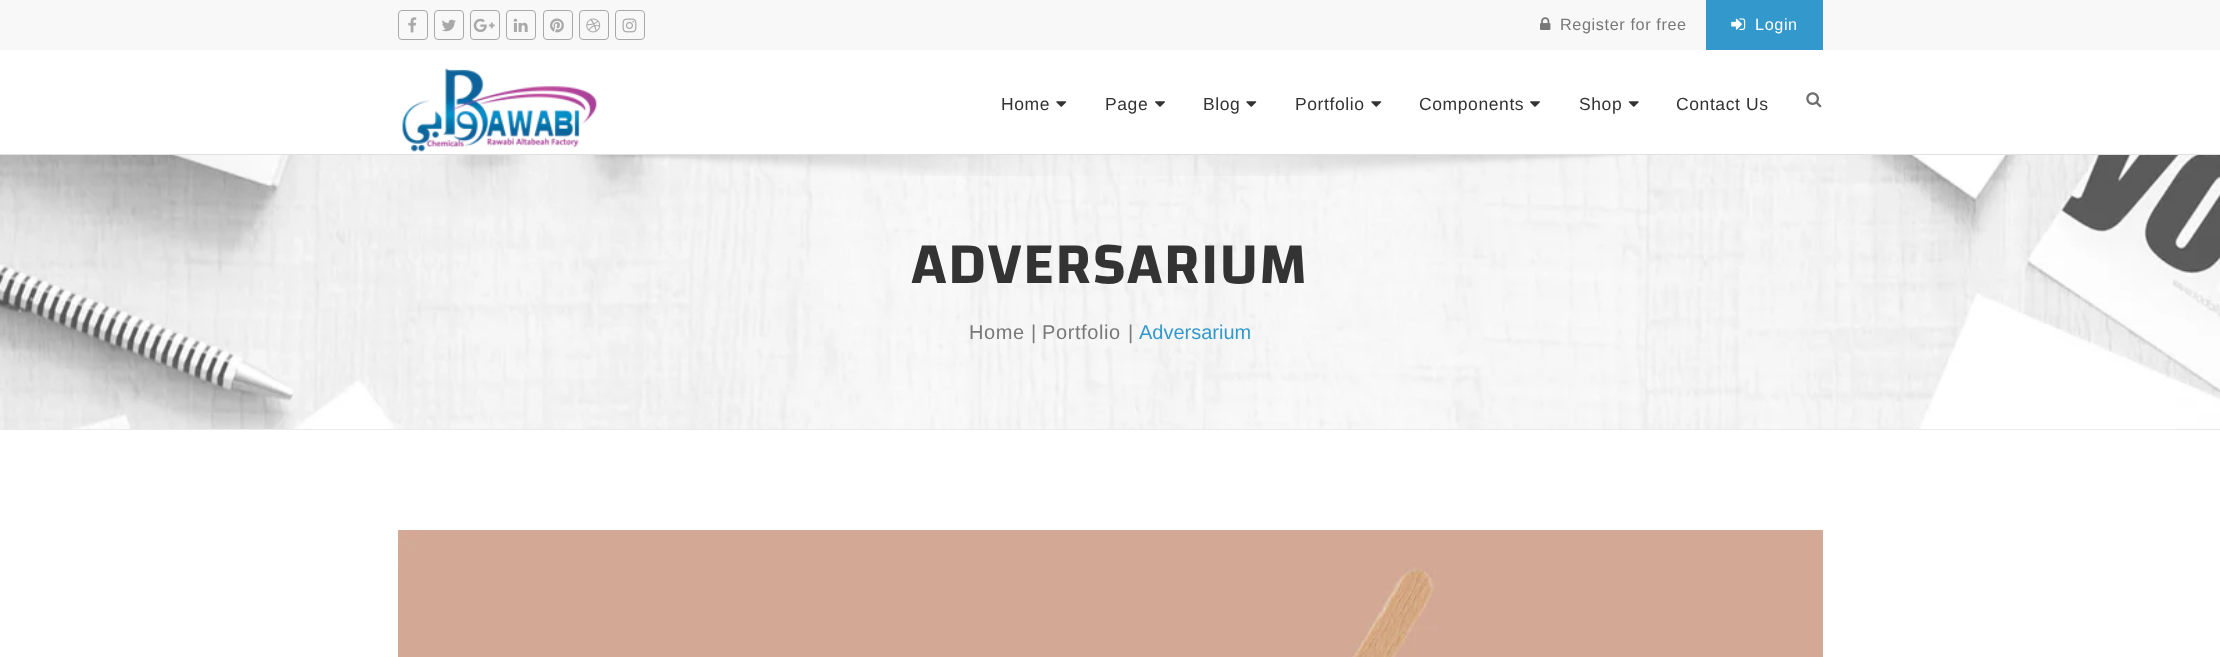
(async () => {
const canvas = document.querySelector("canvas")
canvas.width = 2220
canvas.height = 657
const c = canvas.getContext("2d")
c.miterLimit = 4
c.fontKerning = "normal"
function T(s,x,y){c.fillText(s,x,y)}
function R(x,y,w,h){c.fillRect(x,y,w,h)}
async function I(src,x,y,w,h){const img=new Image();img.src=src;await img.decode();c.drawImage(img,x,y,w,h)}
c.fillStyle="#fff"
R(0,0,2220,657)
c.fillStyle="#f7f8f7"
R(0,0,2220,50)
c.beginPath()
c.roundRect(398.5,10.5,29,29,3.5)
c.strokeStyle="#a9a9a9"
c.stroke()
await I("1.png",408,17,9,16)
c.beginPath()
c.roundRect(434.5,10.5,29,29,3.5)
c.stroke()
await I("2.png",442,19,14,13)
c.beginPath()
c.roundRect(470.5,10.5,29,29,3.5)
c.stroke()
await I("3.png",473,18,22,15)
c.beginPath()
c.roundRect(506.5,10.5,29,29,3.5)
c.stroke()
await I("4.png",513,18,15,14)
c.beginPath()
c.roundRect(543.5,10.5,29,29,3.5)
c.stroke()
await I("5.png",550,18,14,15)
c.beginPath()
c.roundRect(579.5,10.5,29,29,3.5)
c.stroke()
await I("6.png",586,18,15,15)
c.beginPath()
c.roundRect(615.5,10.5,29,29,3.5)
c.stroke()
await I("7.png",622,18,15,15)
await I("8.png",1540,17,11,13)
c.letterSpacing="0.6px"
c.font="16.25px Liberation Sans"
c.fillStyle="#787878"
T("Register for free",1560,30)
c.fillStyle="#39c"
R(1706,0,117,50)
await I("9.png",1731,18,15,12)
c.fillStyle="#fff"
T("Login",1755,30)
c.fillStyle="#e0e0e0"
R(0,154,2220,1)
await I("10.png",402,68,195,84)
c.font="17.5px Liberation Sans"
c.fillStyle="#333"
T("Home",1001,110)
await I("11.png",1056,101,11,6)
T("Page",1105,110)
await I("12.png",1155,101,10,6)
T("Blog",1203,110)
await I("11.png",1246,101,11,6)
T("Portfolio",1295,110)
await I("11.png",1371,101,11,6)
T("Components",1419,110)
await I("12.png",1530,101,10,6)
T("Shop",1579,110)
await I("13.png",1628,101,11,6)
T("Contact Us",1676,110)
await I("14.png",1806,92,16,16)
await I("16.png",0,155,2220,274)
await I("15.png",594,155,1033,21)
c.fillStyle="#eaeaea"
R(0,429,2220,1)
c.letterSpacing="1.25px"
c.font="600 60px Changa"
c.fillStyle="#333"
T("ADVERSARIUM",911,283)
c.letterSpacing="0.6px"
c.font="20px Liberation Sans"
c.fillStyle="#787878"
T("Home",969,339)
c.letterSpacing="0px"
T("|",1031,339)
c.letterSpacing="0.6px"
T("Portfolio",1042,339)
c.letterSpacing="0px"
T("|",1128,339)
c.fillStyle="#39c"
T("Adversarium",1139,339)
await I("17.png",398,530,1425,127)
})()
